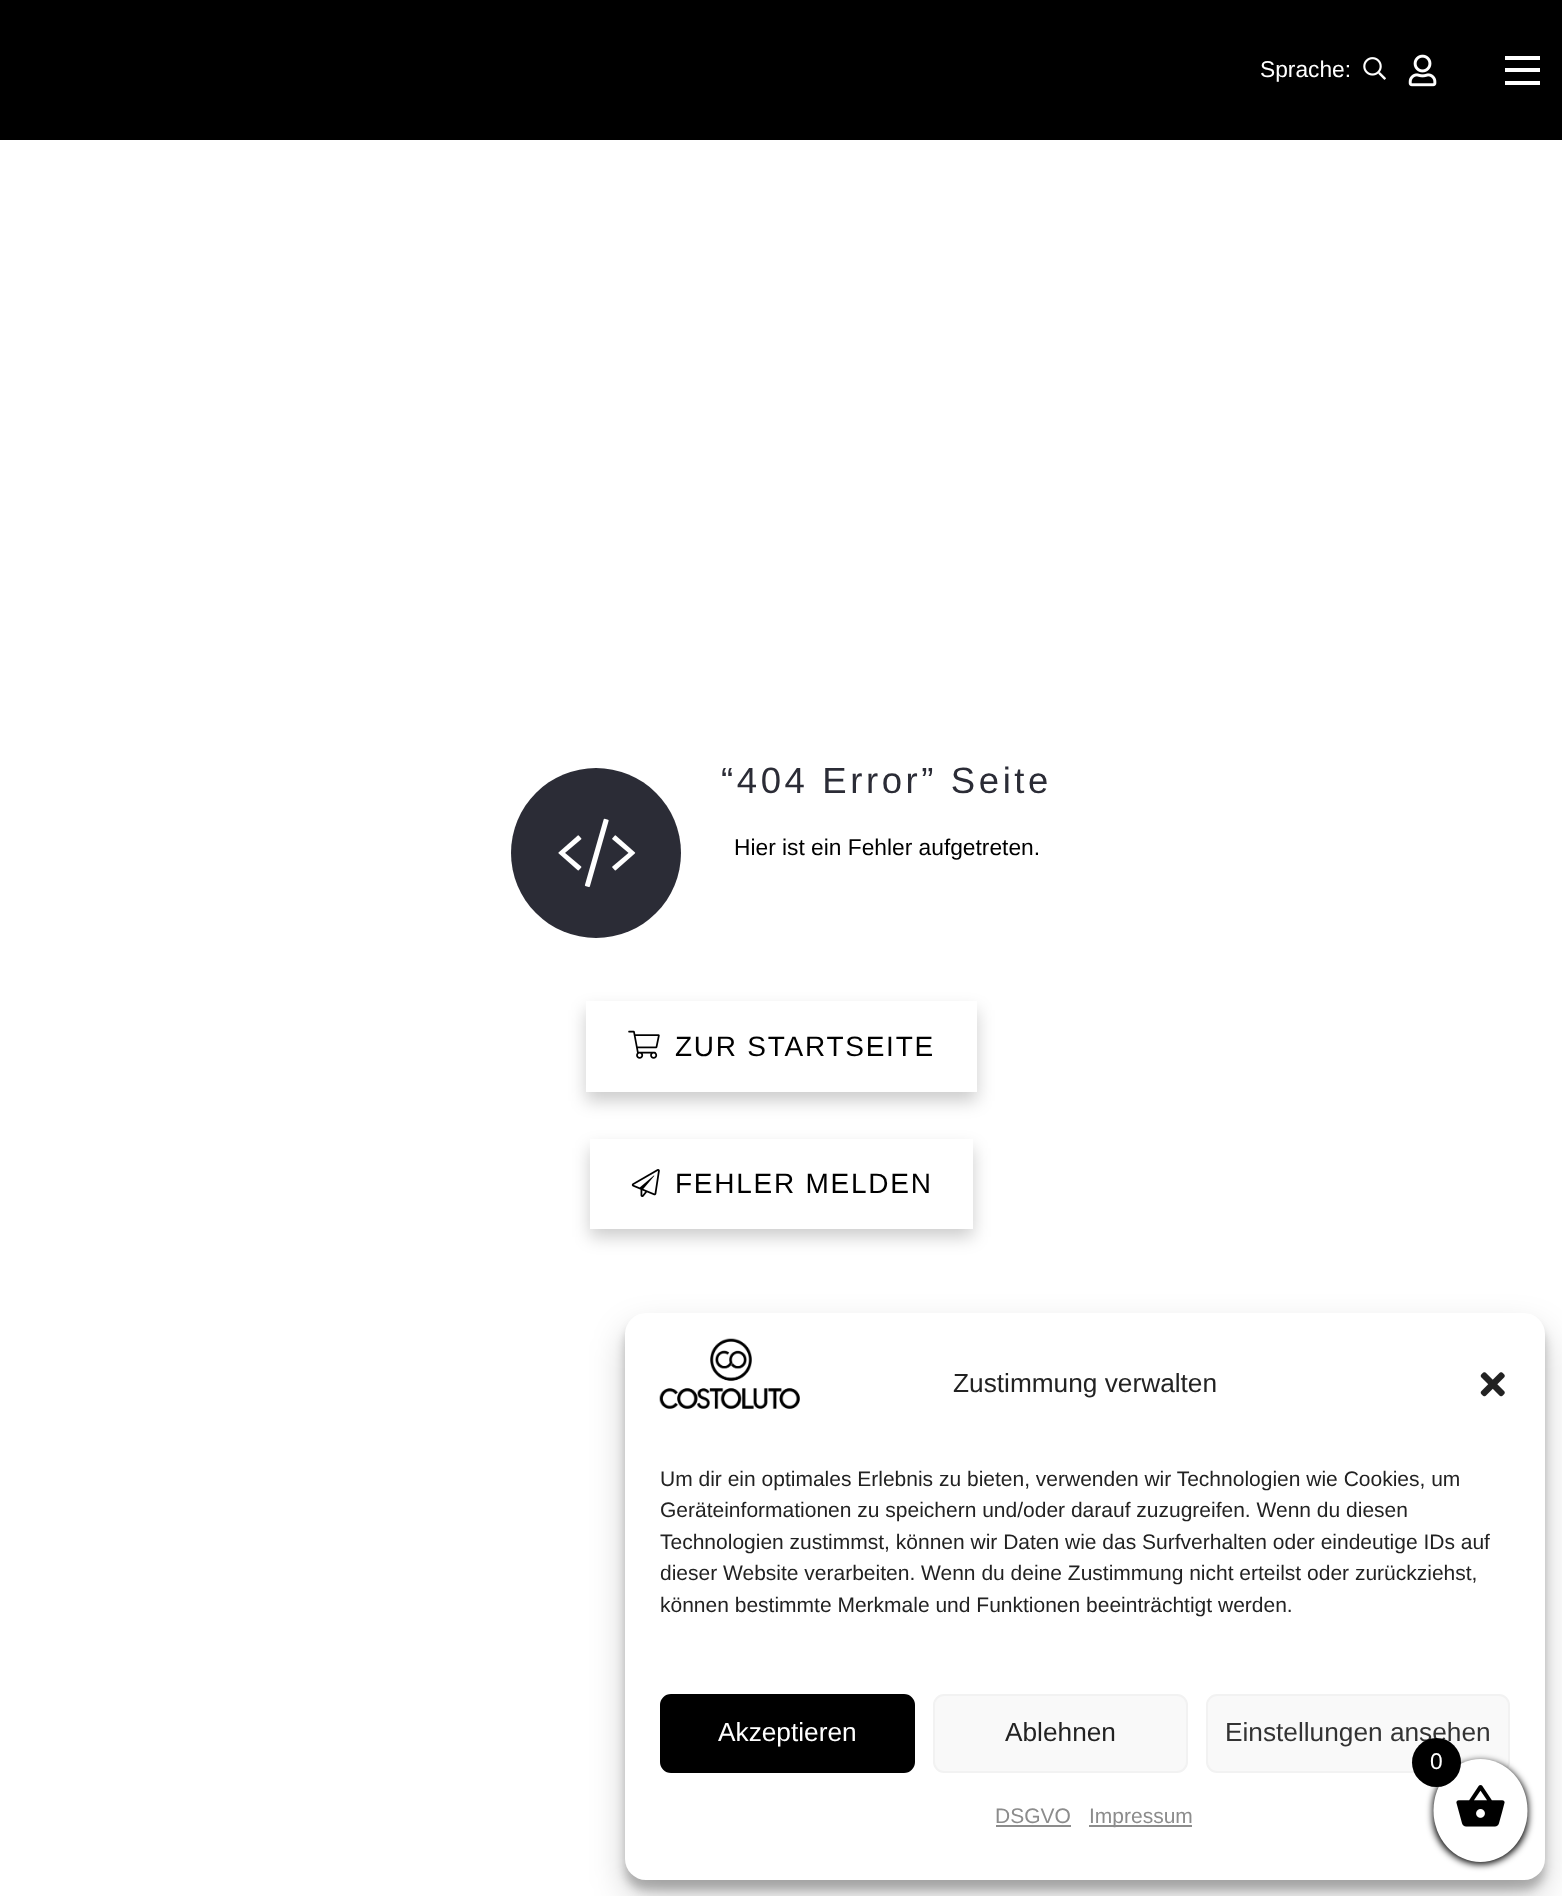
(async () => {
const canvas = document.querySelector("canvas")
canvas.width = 1562
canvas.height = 1896
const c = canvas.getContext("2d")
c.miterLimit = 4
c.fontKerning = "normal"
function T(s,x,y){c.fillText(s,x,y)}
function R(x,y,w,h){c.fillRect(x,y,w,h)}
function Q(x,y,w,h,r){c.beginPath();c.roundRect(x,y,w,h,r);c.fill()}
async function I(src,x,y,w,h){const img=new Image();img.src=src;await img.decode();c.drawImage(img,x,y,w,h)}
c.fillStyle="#fff"
R(0,0,1562,1896)
c.fillStyle="#000"
R(0,0,1562,140)
c.font="22.75px Liberation Sans"
c.fillStyle="#fff"
T("Sprache:",1260,77)
await I("1.png",1363,57,23,23)
await I("2.png",1408,54,29,33)
R(1505,68,35,4)
R(1505,56,35,4)
R(1505,81,35,4)
c.fillStyle="#2b2c36"
c.beginPath()
c.arc(596,853,85,0,7)
c.fill()
await I("3.png",558,818,78,69)
c.letterSpacing="3.6px"
c.font="36.5px Liberation Sans"
T("“404 Error” Seite",721,793)
c.letterSpacing="0px"
c.font="22.75px Liberation Sans"
c.fillStyle="#000"
T("Hier ist ein Fehler aufgetreten.",734,855)
c.fillStyle="#00000033"
c.filter="blur(8.5px)"
c.beginPath()
c.rect(586,1010,391,91)
c.fill()
c.filter="none"
c.fillStyle="#fff"
R(586,1001,391,91)
await I("4.png",628,1030,32,29)
c.letterSpacing="1.75px"
c.font="28px Liberation Sans"
c.fillStyle="#000"
T("ZUR STARTSEITE",675,1056)
c.fillStyle="#00000033"
c.filter="blur(8.5px)"
c.beginPath()
c.rect(590,1148,383,89)
c.fill()
c.filter="none"
c.fillStyle="#fff"
R(590,1139,383,90)
await I("5.png",631,1169,29,28)
c.fillStyle="#000"
T("FEHLER MELDEN",675,1193)
c.fillStyle="#0000003b"
c.filter="blur(5px)"
c.beginPath()
c.roundRect(625,1323,920,567,21)
c.fill()
c.filter="none"
c.fillStyle="#00000030"
c.filter="blur(17.5px)"
c.beginPath()
c.roundRect(625,1330,920,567,21)
c.fill()
c.filter="none"
c.fillStyle="#fff"
Q(625,1313,920,567,21)
await I("6.png",659,1338,141,71)
c.letterSpacing="0px"
c.font="26.25px Liberation Sans"
c.fillStyle="#222"
T("Zustimmung verwalten",953,1392)
await I("7.png",1480,1372,25,25)
c.font="21px Liberation Sans"
T("Um dir ein optimales Erlebnis zu bieten, verwenden wir Technologien wie Cookies, um",660,1486)
T("Geräteinformationen zu speichern und/oder darauf zuzugreifen. Wenn du diesen",660,1517)
T("Technologien zustimmst, können wir Daten wie das Surfverhalten oder eindeutige IDs auf",660,1549)
T("dieser Website verarbeiten. Wenn du deine Zustimmung nicht erteilst oder zurückziehst,",660,1580)
T("können bestimmte Merkmale und Funktionen beeinträchtigt werden.",660,1612)
c.fillStyle="#000"
c.beginPath()
c.roundRect(661,1695,253,77,10)
c.fill()
c.strokeStyle="#000"
c.lineWidth=2
c.stroke()
c.font="26.25px Liberation Sans"
c.fillStyle="#fff"
T("Akzeptieren",718,1741)
c.fillStyle="#f9f9f9"
c.beginPath()
c.roundRect(934,1695,253,77,10)
c.fill()
c.strokeStyle="#f2f2f2"
c.stroke()
c.fillStyle="#222"
T("Ablehnen",1005,1741)
c.fillStyle="#f9f9f9"
c.beginPath()
c.roundRect(1207,1695,302,77,10)
c.fill()
c.stroke()
c.fillStyle="#333"
T("Einstellungen ansehen",1225,1741)
c.font="21px Liberation Sans"
c.fillStyle="#8c8c8c"
T("DSGVO",995,1823)
R(996,1825,75,2)
R(1089,1825,103,2)
T("Impressum",1089,1823)
c.fillStyle="#000"
c.filter="blur(3.5px)"
c.beginPath()
c.roundRect(1433,1761,95,103,47.5)
c.fill()
c.filter="none"
c.fillStyle="#fff"
c.beginPath()
c.ellipse(1480.5,1810.5,47,51.5,0,0,7)
c.fill()
c.fillStyle="#000"
c.beginPath()
c.arc(1436.5,1762.5,24.5,0,7)
c.fill()
c.font="22.75px Liberation Sans"
c.fillStyle="#fff"
T("0",1430,1769)
await I("8.png",1456,1785,49,42)
})()
